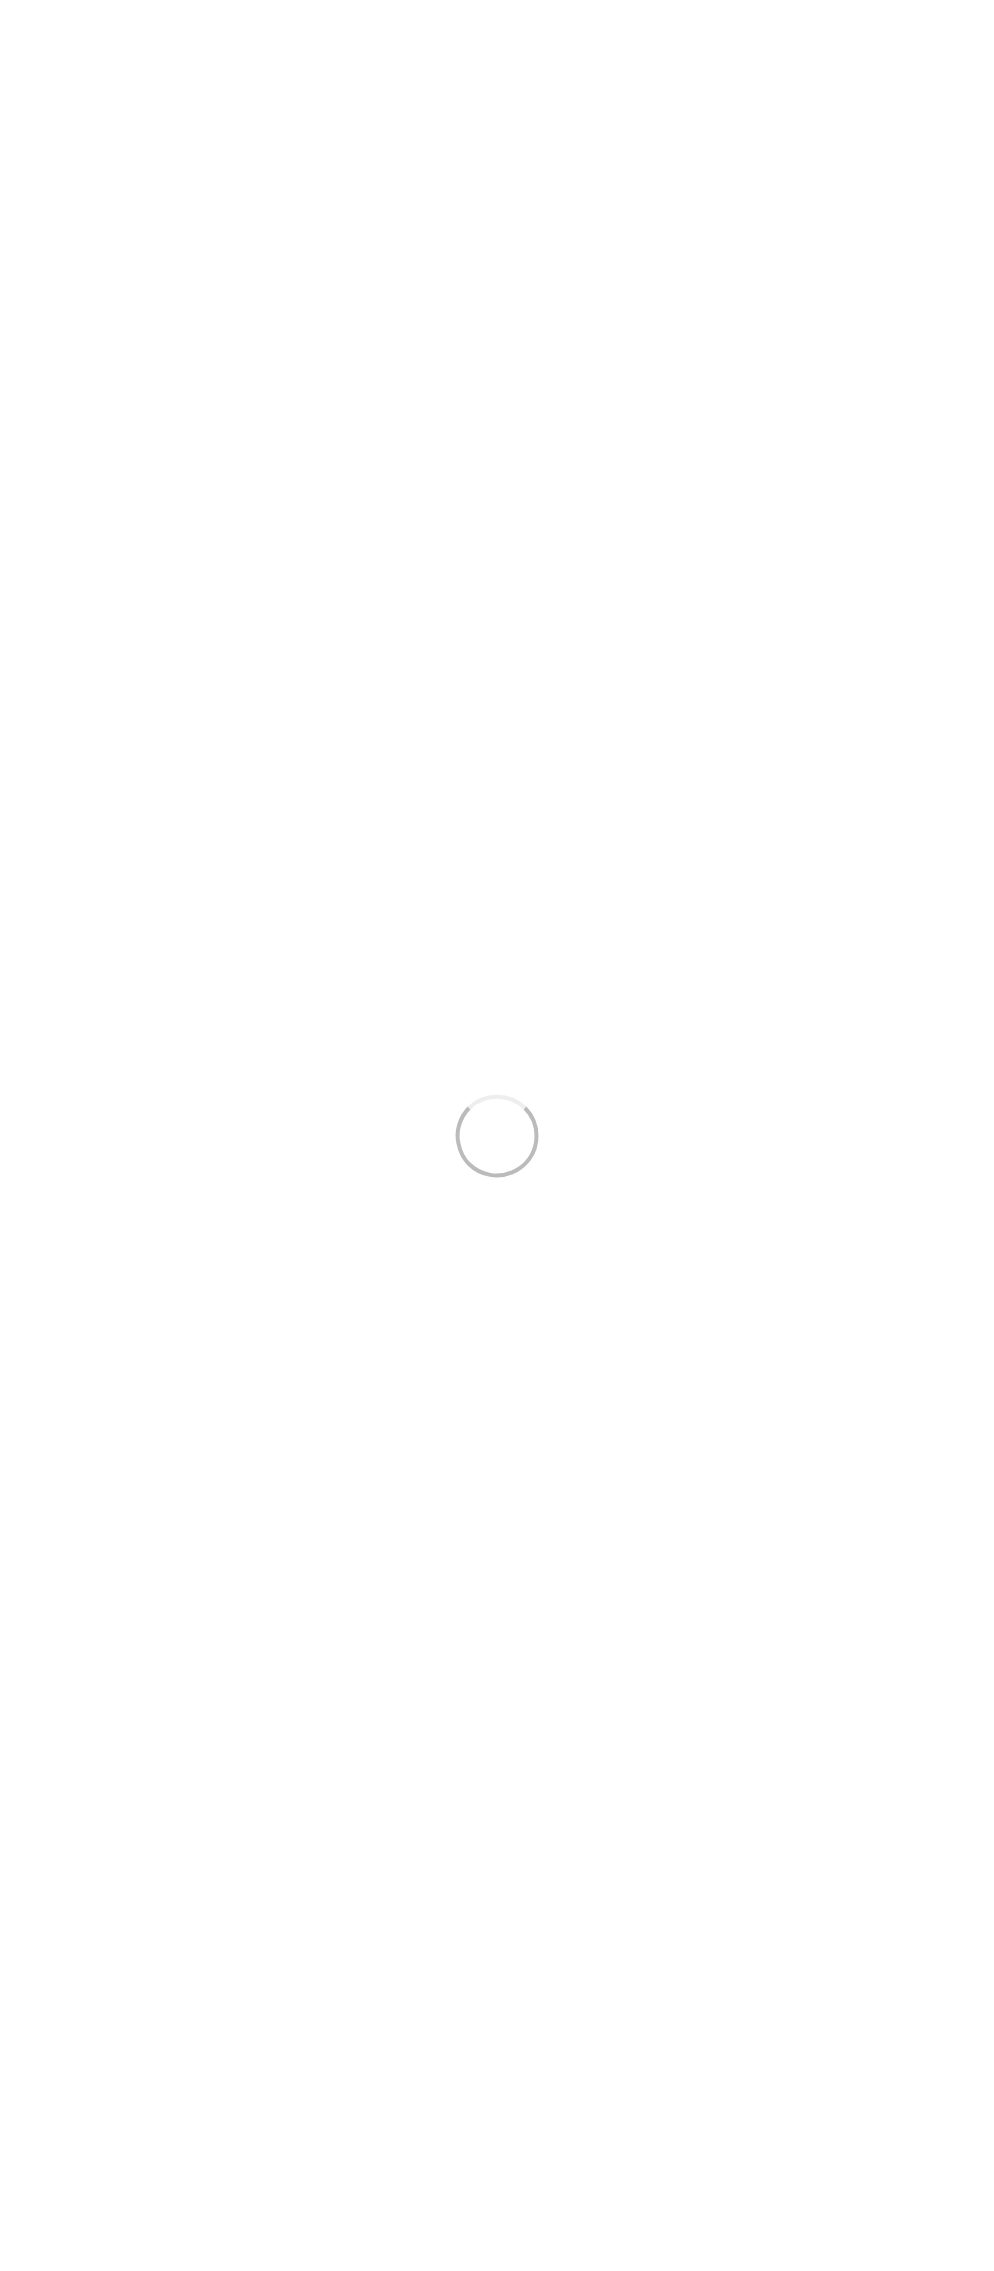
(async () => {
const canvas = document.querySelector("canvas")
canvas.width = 994
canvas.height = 2271
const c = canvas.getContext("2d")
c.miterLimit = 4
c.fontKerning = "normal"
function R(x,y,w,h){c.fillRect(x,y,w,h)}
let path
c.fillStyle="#fff"
R(0,0,994,2271)
path = new Path2D("M469 1108c15.5-15 40.5-15 56 0")
c.strokeStyle="#eee"
c.lineWidth=4
c.stroke(path)
path = new Path2D("M525 1108c7.5 7.5 11.5 17.5 11.5 28c0 35-42.5 52.5-67.5 28c-5.5-5.5-9-12.5-10.5-20.5c-3-12.5 1.5-26 10.5-35.5")
c.strokeStyle="#bbb"
c.stroke(path)
})()
